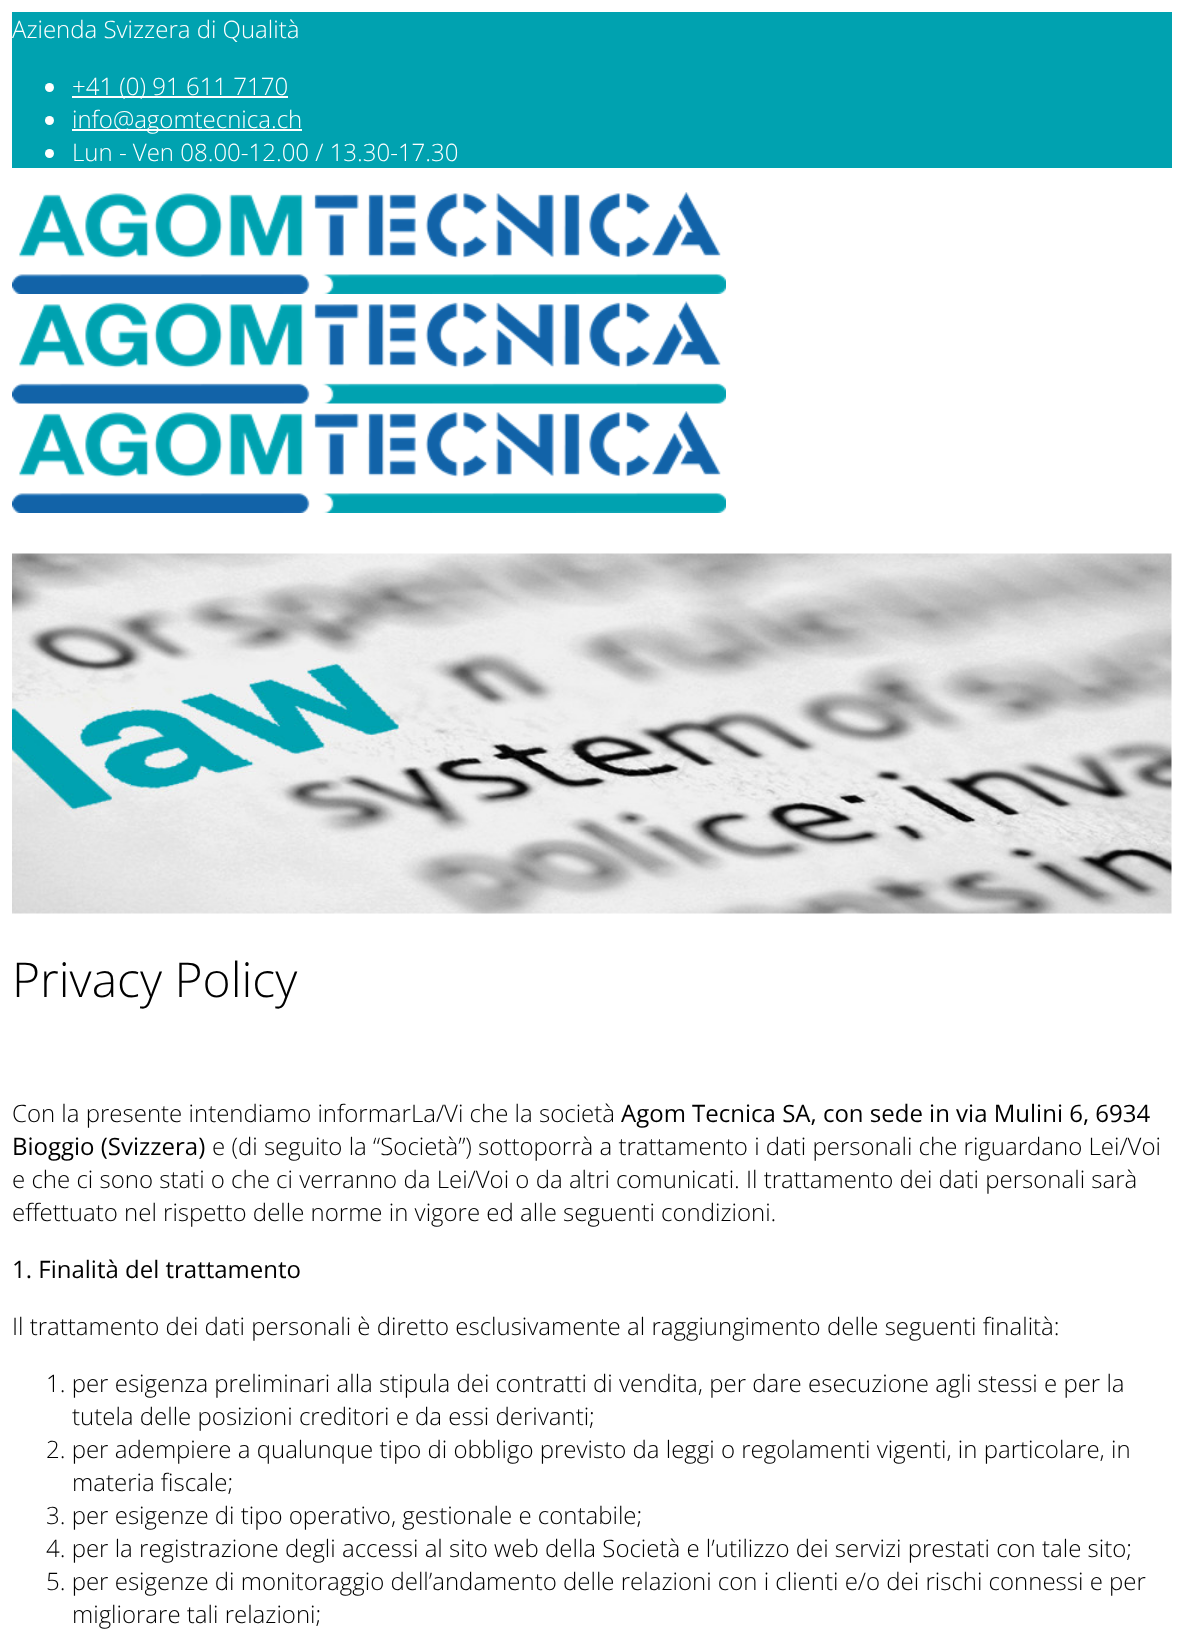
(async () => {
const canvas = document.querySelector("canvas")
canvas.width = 1183
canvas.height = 1646
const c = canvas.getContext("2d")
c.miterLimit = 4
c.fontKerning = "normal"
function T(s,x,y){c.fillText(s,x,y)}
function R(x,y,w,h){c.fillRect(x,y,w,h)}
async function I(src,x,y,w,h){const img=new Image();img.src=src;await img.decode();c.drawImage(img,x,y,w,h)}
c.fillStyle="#fff"
R(0,0,1183,1646)
c.fillStyle="#00a2b0"
R(12,12,1160,156)
c.font="300 24px Open Sans"
c.fillStyle="#fff"
T("Azienda Svizzera di Qualità",12,38)
c.beginPath()
c.arc(49.5,87.5,4.5,0,7)
c.fill()
R(72,96,216,2)
T("+41 (0) 91 611 7170",72,95)
c.beginPath()
c.arc(49.5,120.5,4.5,0,7)
c.fill()
R(72,129,230,2)
T("info@agomtecnica.ch",72,128)
c.beginPath()
c.arc(49.5,153.5,4.5,0,7)
c.fill()
T("Lun - Ven 08.00-12.00 / 13.30-17.30",72,161)
await I("1.png",12,192,714,102)
await I("2.png",12,301,714,103)
await I("1.png",12,411,714,102)
await I("3.png",12,553,1160,361)
c.font="300 48px Open Sans"
c.fillStyle="#000"
T("Privacy Policy",12,997)
c.font="300 24px Open Sans"
T("Con la presente intendiamo informarLa/Vi che la società",12,1122)
c.font="24px Open Sans"
T("Agom Tecnica SA, con sede in via Mulini 6, 6934",621,1122)
T("Bioggio (Svizzera)",12,1155)
c.font="300 24px Open Sans"
T("e (di seguito la “Società”) sottoporrà a trattamento i dati personali che riguardano Lei/Voi",212,1155)
T("e che ci sono stati o che ci verranno da Lei/Voi o da altri comunicati. Il trattamento dei dati personali sarà",12,1188)
T("effettuato nel rispetto delle norme in vigore ed alle seguenti condizioni.",12,1221)
c.font="24px Open Sans"
T("1. Finalità del trattamento",12,1278)
c.font="300 24px Open Sans"
T("Il trattamento dei dati personali è diretto esclusivamente al raggiungimento delle seguenti finalità:",12,1335)
T("1. per esigenza preliminari alla stipula dei contratti di vendita, per dare esecuzione agli stessi e per la",46,1392)
T("tutela delle posizioni creditori e da essi derivanti;",72,1425)
T("2. per adempiere a qualunque tipo di obbligo previsto da leggi o regolamenti vigenti, in particolare, in",46,1458)
T("materia fiscale;",72,1491)
T("3. per esigenze di tipo operativo, gestionale e contabile;",46,1524)
T("4. per la registrazione degli accessi al sito web della Società e l’utilizzo dei servizi prestati con tale sito;",46,1557)
T("5. per esigenze di monitoraggio dell’andamento delle relazioni con i clienti e/o dei rischi connessi e per",46,1590)
T("migliorare tali relazioni;",72,1623)
})()
